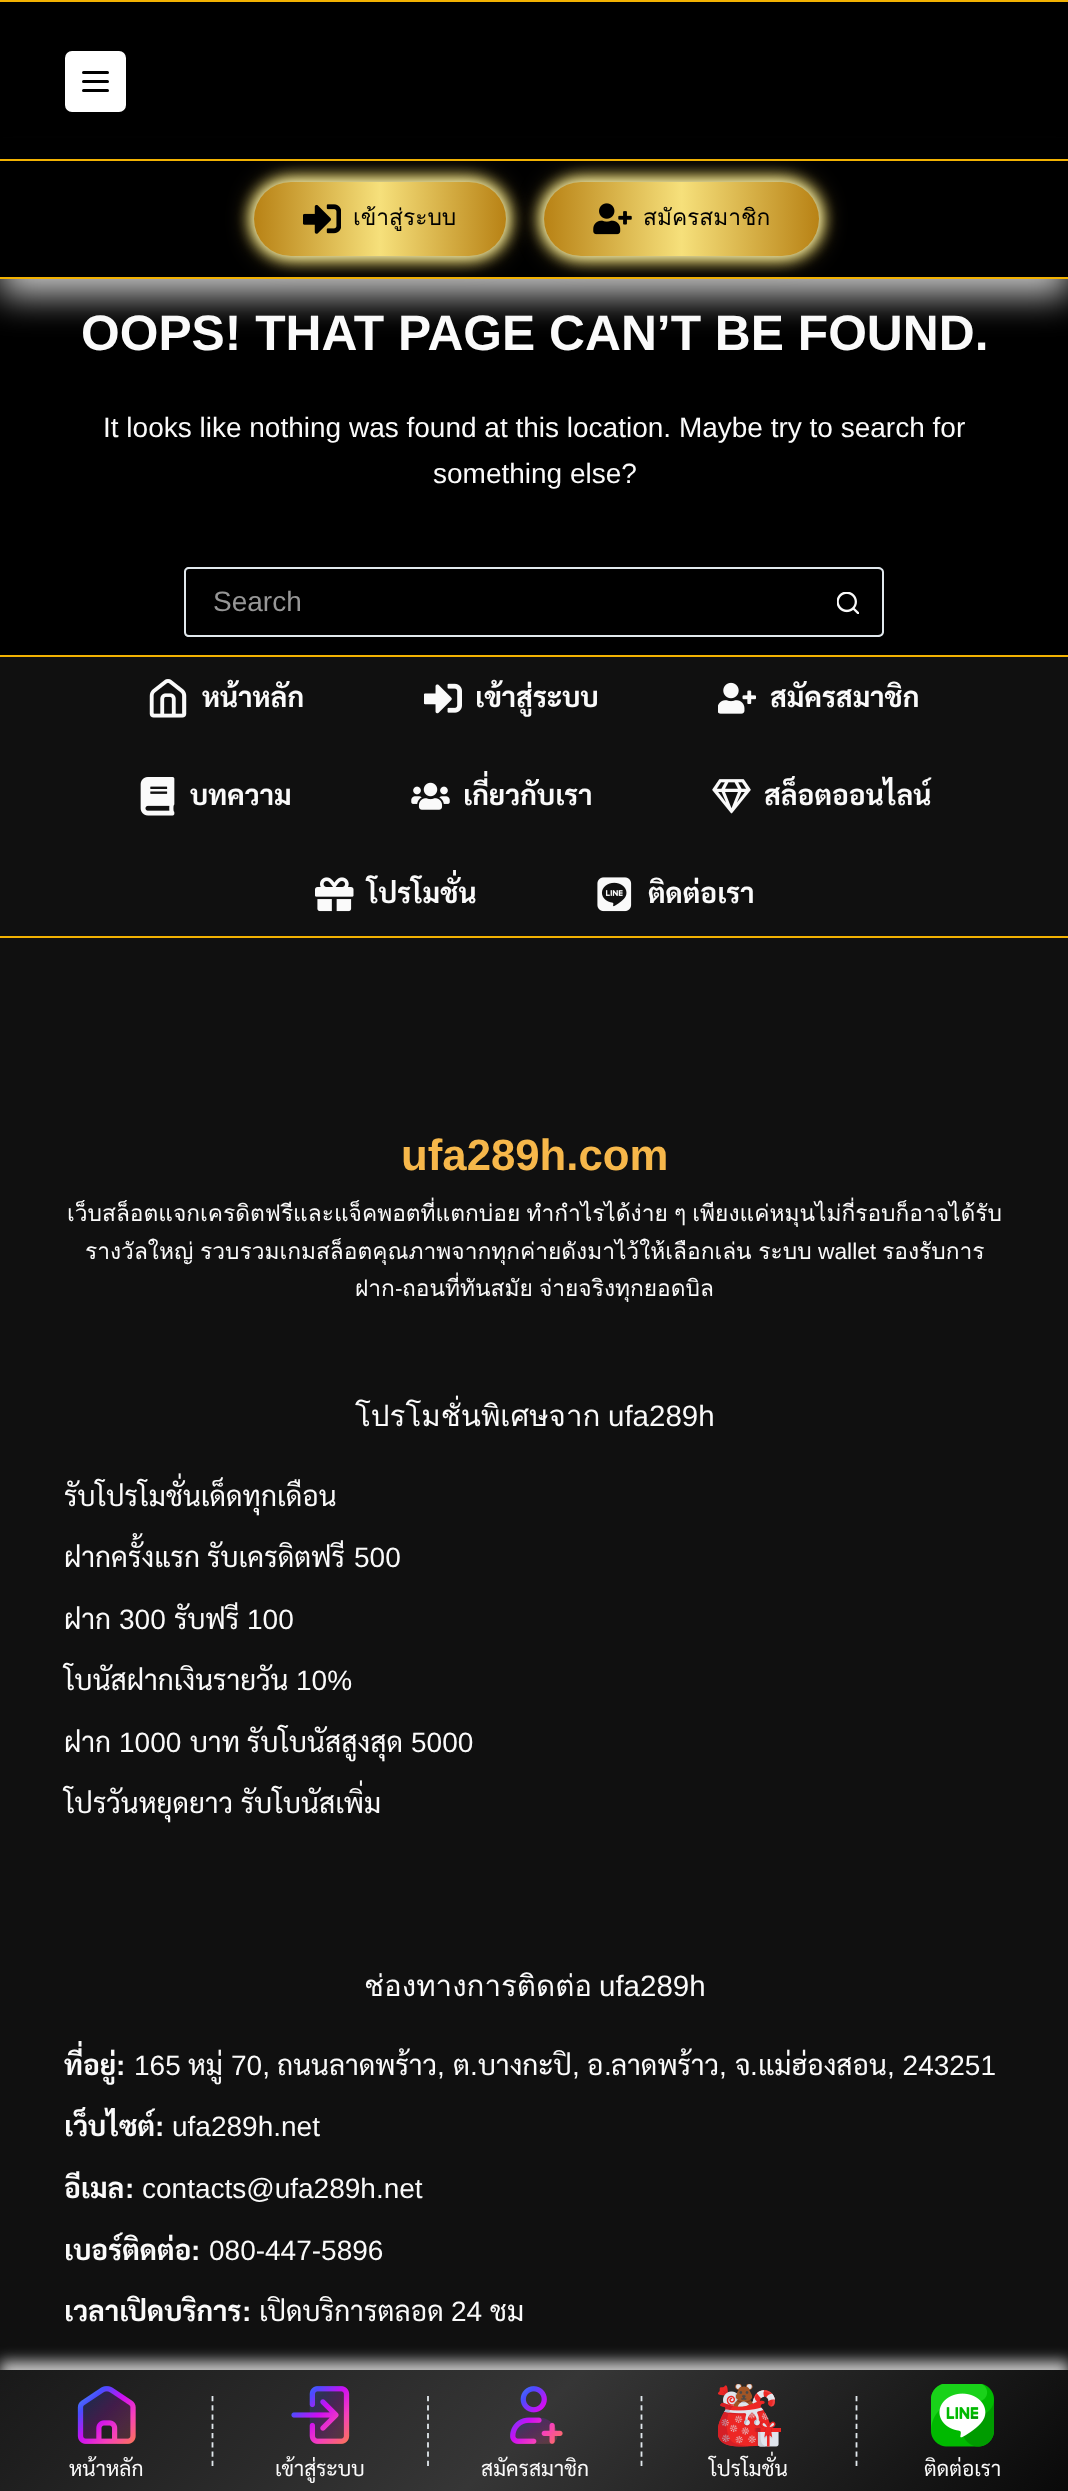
(async () => {
const canvas = document.querySelector("canvas")
canvas.width = 1068
canvas.height = 2491
const c = canvas.getContext("2d")
c.miterLimit = 4
c.fontKerning = "normal"
function T(s,x,y){c.fillText(s,x,y)}
function R(x,y,w,h){c.fillRect(x,y,w,h)}
function Q(x,y,w,h,r){c.beginPath();c.roundRect(x,y,w,h,r);c.fill()}
async function I(src,x,y,w,h){const img=new Image();img.src=src;await img.decode();c.drawImage(img,x,y,w,h)}
let gradient, path
c.fillStyle="#000"
R(0,0,1068,2491)
c.fillStyle="#c2c2c2"
c.filter="blur(17.5px)"
c.beginPath()
c.rect(0,177,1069,119)
c.fill()
c.filter="none"
c.fillStyle="#000"
R(0,161,1068,116)
c.fillStyle="#f2b202"
R(0,159,1068,2)
R(0,277,1068,2)
c.fillStyle="#c1a058"
c.filter="blur(13px)"
c.beginPath()
c.roundRect(254,182,252,74,37)
c.fill()
c.filter="none"
c.fillStyle="#edd700"
c.filter="blur(9px)"
c.beginPath()
c.roundRect(254,182,252,74,37)
c.fill()
c.filter="none"
c.fillStyle="#fafafa"
c.filter="blur(8px)"
c.beginPath()
c.roundRect(254,182,252,74,37)
c.fill()
c.filter="none"
gradient = c.createLinearGradient(506,219,254,219)
gradient.addColorStop(0,"#b88215")
gradient.addColorStop(.5,"#f6e07b")
gradient.addColorStop(1,"#b88215")
c.fillStyle = gradient
Q(254,182,252,74,37)
c.fillStyle="#c1a058"
c.filter="blur(13px)"
c.beginPath()
c.roundRect(544,182,275,74,37)
c.fill()
c.filter="none"
c.fillStyle="#edd700"
c.filter="blur(9px)"
c.beginPath()
c.roundRect(544,182,275,74,37)
c.fill()
c.filter="none"
c.fillStyle="#fafafa"
c.filter="blur(8px)"
c.beginPath()
c.roundRect(544,182,275,74,37)
c.fill()
c.filter="none"
c.fillStyle="#000"
R(0,138,1068,21)
c.fillStyle="#f2b202"
R(0,0,1068,2)
c.fillStyle="#fff"
Q(65,51,61,61,7)
c.fillStyle="#000"
Q(82,71,27,3,1.5)
Q(82,80,27,3,1.5)
Q(82,89,27,3,1.5)
await I("1.png",303,204,38,30)
c.font="22.75px Loma"
T("เข้าสู่ระบบ",353,225)
gradient = c.createLinearGradient(819,219,544,219)
gradient.addColorStop(0,"#b88215")
gradient.addColorStop(.5,"#f6e07b")
gradient.addColorStop(1,"#b88215")
c.fillStyle = gradient
Q(544,182,275,74,37)
await I("2.png",593,203,39,32)
c.fillStyle="#000"
T("สมัครสมาชิก",643,225)
c.font="bold 49.75px Liberation Sans"
c.fillStyle="#fafafa"
T("OOPS! THAT PAGE CAN’T BE FOUND.",81,350)
c.font="28px Liberation Sans"
T("It looks like nothing was found at this location. Maybe try to search for",103,437)
T("something else?",433,483)
c.fillStyle="#e1e8ed"
path = new Path2D("M189 567h625v70h-625c-3 0-5-2-5-5v-60c0-3 2-5 5-5zm0 2h625v66h-625c-2 0-3-1-3-3v-60c0-2 1-3 3-3z")
c.fill(path,"evenodd")
c.fillStyle="#969696"
T("Search",213,611)
c.fillStyle="#e1e8ed"
path = new Path2D("M814 567h64c3 0 6 2 6 5v60c0 3-3 5-6 5h-64zm0 2h64c2 0 4 1 4 3v60c0 2-2 3-4 3h-64z")
c.fill(path,"evenodd")
await I("3.png",837,592,22,22)
c.fillStyle="#101010"
R(0,657,1068,279)
c.fillStyle="#f2b202"
R(0,655,1068,2)
R(0,936,1068,2)
await I("4.png",149,679,38,39)
c.font="bold 28px Sarabun"
c.fillStyle="#fafafa"
T("หน้าหลัก",202,707)
await I("5.png",424,683,38,31)
T("เข้าสู่ระบบ",475,707)
await I("6.png",718,682,38,32)
T("สมัครสมาชิก",770,707)
await I("7.png",140,777,35,39)
T("บทความ",190,805)
await I("8.png",411,782,39,28)
T("เกี่ยวกับเรา",463,805)
await I("9.png",712,779,39,35)
T("สล็อตออนไลน์",764,805)
await I("10.png",315,877,39,35)
T("โปรโมชั่น",367,903)
await I("11.png",597,877,35,35)
T("ติดต่อเรา",648,903)
c.fillStyle="#101010"
R(0,938,1068,1432)
c.font="bold 43.75px Liberation Sans"
c.fillStyle="#f6b74a"
T("ufa289h.com",401,1170)
c.wordSpacing="-1.5px"
c.font="22.75px Loma"
c.fillStyle="#fafafa"
T("เว็บสล็อตแจกเครดิตฟรีและแจ็คพอตที่แตกบ่อย ทำกำไรได้ง่าย ๆ เพียงแค่หมุนไม่กี่รอบก็อาจได้รับ",67,1221)
c.wordSpacing="-1px"
T("รางวัลใหญ่ รวบรวมเกมสล็อตคุณภาพจากทุกค่ายดังมาไว้ให้เลือกเล่น ระบบ",85,1259)
c.wordSpacing="0px"
c.font="22.75px Liberation Sans"
T("wallet",818,1259)
c.font="22.75px Loma"
T("รองรับการ",882,1259)
T("ฝาก",355,1296)
c.font="22.75px Liberation Sans"
T("-",395,1296)
c.wordSpacing="-1.5px"
c.font="22.75px Loma"
T("ถอนที่ทันสมัย จ่ายจริงทุกยอดบิล",402,1296)
c.wordSpacing="0px"
c.font="29.5px Loma"
T("โปรโมชั่นพิเศษจาก",355,1426)
c.font="29.5px Liberation Sans"
T("ufa289h",608,1426)
c.font="28px Sarabun"
T("รับโปรโมชั่นเด็ดทุกเดือน",64,1506)
T("ฝากครั้งแรก รับเครดิตฟรี",64,1567)
c.font="28px Liberation Sans"
T("500",354,1567)
c.font="28px Sarabun"
T("ฝาก",64,1629)
c.font="28px Liberation Sans"
T("300",119,1629)
c.font="28px Sarabun"
T("รับฟรี",174,1629)
c.font="28px Liberation Sans"
T("100",247,1629)
c.font="28px Sarabun"
T("โบนัสฝากเงินรายวัน",64,1690)
c.font="28px Liberation Sans"
T("10%",296,1690)
c.font="28px Sarabun"
T("ฝาก",64,1752)
c.font="28px Liberation Sans"
T("1000",119,1752)
c.font="28px Sarabun"
T("บาท รับโบนัสสูงสุด",190,1752)
c.font="28px Liberation Sans"
T("5000",411,1752)
c.wordSpacing="1px"
c.font="28px Sarabun"
T("โปรวันหยุดยาว รับโบนัสเพิ่ม",64,1813)
c.wordSpacing="0px"
c.font="29.5px Loma"
T("ช่องทางการติดต่อ",364,1996)
c.font="29.5px Liberation Sans"
T("ufa289h",599,1996)
c.font="bold 28px Sarabun"
T("ที่อยู่",64,2075)
c.font="bold 28px Liberation Sans"
T(":",116,2075)
c.font="28px Liberation Sans"
T("165",134,2075)
c.font="28px Sarabun"
T("หมู่",188,2075)
c.font="28px Liberation Sans"
T("70,",231,2075)
c.font="28px Sarabun"
T("ถนนลาดพร้าว",277,2075)
c.font="28px Liberation Sans"
T(",",437,2075)
c.font="28px Sarabun"
T("ต",453,2075)
c.font="28px Liberation Sans"
T(".",470,2075)
c.font="28px Sarabun"
T("บางกะปิ",478,2075)
c.font="28px Liberation Sans"
T(",",572,2075)
c.font="28px Sarabun"
T("อ",587,2075)
c.font="28px Liberation Sans"
T(".",604,2075)
c.font="28px Sarabun"
T("ลาดพร้าว",611,2075)
c.font="28px Liberation Sans"
T(",",719,2075)
c.font="28px Sarabun"
T("จ",735,2075)
c.font="28px Liberation Sans"
T(".",750,2075)
c.font="28px Sarabun"
T("แม่ฮ่องสอน",758,2075)
c.font="28px Liberation Sans"
T(", 243251",887,2075)
c.font="bold 28px Sarabun"
T("เว็บไซต์",64,2136)
c.font="bold 28px Liberation Sans"
T(":",155,2136)
c.font="28px Liberation Sans"
T("ufa289h.net",172,2136)
c.font="bold 28px Sarabun"
T("อีเมล",64,2198)
c.font="bold 28px Liberation Sans"
T(":",125,2198)
c.font="28px Liberation Sans"
T("contacts@ufa289h.net",142,2198)
c.font="bold 28px Sarabun"
T("เบอร์ติดต่อ",64,2260)
c.font="bold 28px Liberation Sans"
T(":",191,2260)
c.font="28px Liberation Sans"
T("080-447-5896",209,2260)
c.font="bold 28px Sarabun"
T("เวลาเปิดบริการ",64,2321)
c.font="bold 28px Liberation Sans"
T(":",242,2321)
c.font="28px Sarabun"
T("เปิดบริการตลอด",259,2321)
c.font="28px Liberation Sans"
T("24",451,2321)
c.font="28px Sarabun"
T("ชม",490,2321)
c.fillStyle="#c2c2c2"
c.filter="blur(7px)"
c.beginPath()
c.rect(0,2361,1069,122)
c.fill()
c.filter="none"
gradient = c.createLinearGradient(237,2133,833,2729)
gradient.addColorStop(0,"#191919")
gradient.addColorStop(.49,"#363636")
gradient.addColorStop(1,"#090909")
c.fillStyle = gradient
R(0,2370,1068,121)
await I("12.png",77,2386,59,58)
c.font="21px 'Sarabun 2'"
c.fillStyle="#fafafa"
T("หน้าหลัก",69,2476)
path = new Path2D("M212.5 2396v70")
c.strokeStyle="#e1e8ed"
c.lineWidth=1.8
c.setLineDash([5.25,4.01])
c.stroke(path)
path = new Path2D("M428 2396v70")
c.stroke(path)
await I("13.png",291,2386,59,58)
T("เข้าสู่ระบบ",275,2476)
await I("14.png",510,2386,53,58)
T("สมัครสมาชิก",481,2476)
path = new Path2D("M641.5 2396v70")
c.stroke(path)
await I("15.png",718,2384,63,63)
T("โปรโมชั่น",709,2476)
path = new Path2D("M856.5 2396v70")
c.stroke(path)
await I("16.png",931,2384,63,63)
T("ติดต่อเรา",924,2476)
})()
